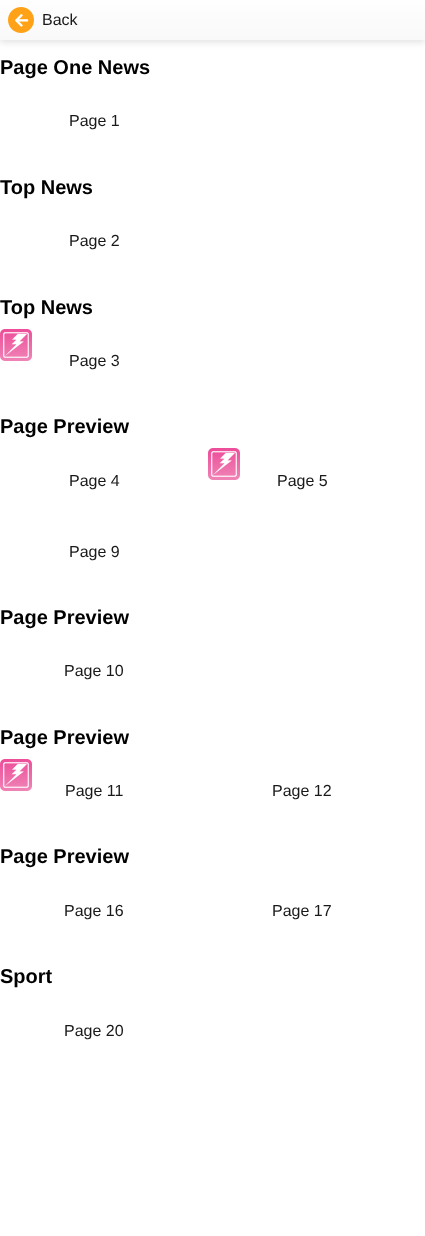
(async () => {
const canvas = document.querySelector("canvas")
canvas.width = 425
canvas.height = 1236
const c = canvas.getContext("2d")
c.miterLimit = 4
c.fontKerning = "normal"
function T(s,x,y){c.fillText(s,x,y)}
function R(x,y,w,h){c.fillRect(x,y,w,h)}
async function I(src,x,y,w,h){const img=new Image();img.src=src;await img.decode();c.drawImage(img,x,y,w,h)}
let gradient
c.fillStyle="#fff"
R(0,0,425,1236)
c.fillStyle="#0000001a"
c.filter="blur(3px)"
c.beginPath()
c.rect(0,3,425,40)
c.fill()
c.filter="none"
gradient = c.createLinearGradient(213,0,213,40)
gradient.addColorStop(0,"#fefefe")
gradient.addColorStop(1,"#f9f9f9")
c.fillStyle = gradient
R(0,0,425,40)
await I("1.png",8,7,26,26)
c.font="16px Liberation Sans"
c.fillStyle="#191919"
T("Back",42,25)
c.font="bold 20px Liberation Sans"
c.fillStyle="#000"
T("Page One News",0,74)
c.font="16px Liberation Sans"
c.fillStyle="#191919"
T("Page 1",69,126)
c.font="bold 20px Liberation Sans"
c.fillStyle="#000"
T("Top News",0,194)
c.font="16px Liberation Sans"
c.fillStyle="#191919"
T("Page 2",69,246)
c.font="bold 20px Liberation Sans"
c.fillStyle="#000"
T("Top News",0,314)
await I("2.png",0,329,32,32)
c.font="16px Liberation Sans"
c.fillStyle="#191919"
T("Page 3",69,366)
c.font="bold 20px Liberation Sans"
c.fillStyle="#000"
T("Page Preview",0,433)
c.font="16px Liberation Sans"
c.fillStyle="#191919"
T("Page 4",69,486)
await I("2.png",208,448,32,32)
T("Page 5",277,486)
T("Page 9",69,557)
c.font="bold 20px Liberation Sans"
c.fillStyle="#000"
T("Page Preview",0,624)
c.font="16px Liberation Sans"
c.fillStyle="#191919"
T("Page 10",64,676)
c.font="bold 20px Liberation Sans"
c.fillStyle="#000"
T("Page Preview",0,744)
await I("2.png",0,759,32,32)
c.font="16px Liberation Sans"
c.fillStyle="#191919"
T("Page 11",65,796)
T("Page 12",272,796)
c.font="bold 20px Liberation Sans"
c.fillStyle="#000"
T("Page Preview",0,863)
c.font="16px Liberation Sans"
c.fillStyle="#191919"
T("Page 16",64,916)
T("Page 17",272,916)
c.font="bold 20px Liberation Sans"
c.fillStyle="#000"
T("Sport",0,983)
c.font="16px Liberation Sans"
c.fillStyle="#191919"
T("Page 20",64,1036)
})()
